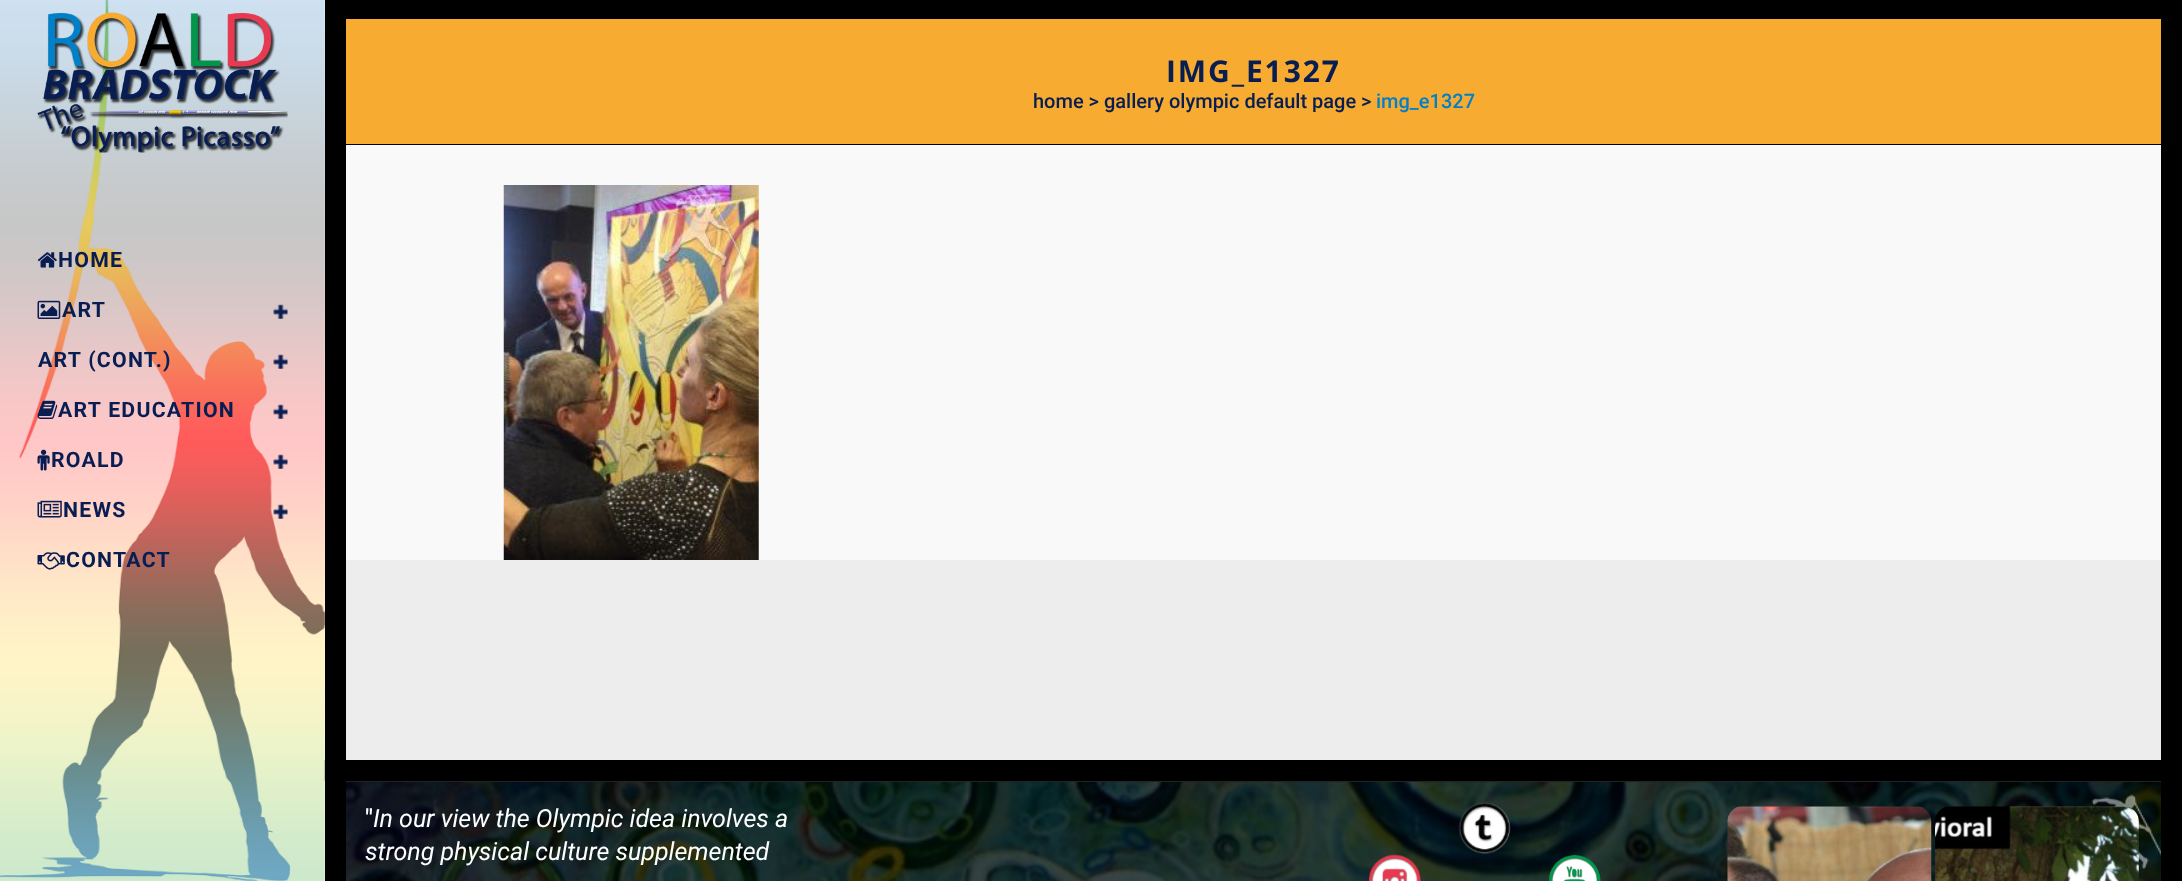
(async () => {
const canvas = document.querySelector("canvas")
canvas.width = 2182
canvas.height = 881
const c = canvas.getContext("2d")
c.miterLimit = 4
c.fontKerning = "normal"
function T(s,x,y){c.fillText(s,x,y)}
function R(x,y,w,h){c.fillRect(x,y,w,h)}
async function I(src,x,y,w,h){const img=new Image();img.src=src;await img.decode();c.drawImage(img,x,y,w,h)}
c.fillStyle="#fff"
R(0,0,2182,881)
c.fillStyle="#000"
R(325,0,21,881)
R(346,0,1815,19)
c.fillStyle="#f7ab31"
R(346,19,1815,125)
c.fillStyle="#000"
R(346,144,1815,1)
c.letterSpacing="1.9px"
c.font="bold 30px Open Sans"
c.fillStyle="#081d52"
T("IMG_E1327",1166,82)
c.letterSpacing="0px"
c.font="500 20px Roboto"
T("home > gallery olympic default page >",1033,108)
c.fillStyle="#0180c7"
T("img_e1327",1376,108)
c.fillStyle="#f9f9f9"
R(346,145,1815,415)
await I("1.png",503,185,256,375)
c.fillStyle="#ededed"
R(346,560,1815,200)
c.fillStyle="#000"
R(2161,0,21,881)
R(323,760,1838,21)
await I("2.png",0,0,325,881)
await I("3.png",37,12,251,141)
await I("4.png",37,252,20,16)
c.letterSpacing="1.25px"
c.font="bold 21.25px Roboto"
c.fillStyle="#081d52"
T("HOME",58,267)
await I("5.png",37,300,24,19)
T("ART",62,317)
await I("6.png",273,304,15,15)
T("ART (CONT.)",38,367)
await I("7.png",273,354,15,15)
await I("8.png",37,400,21,19)
T("ART EDUCATION",58,417)
await I("9.png",273,404,15,15)
await I("10.png",37,449,13,22)
T("ROALD",51,467)
await I("11.png",273,454,15,15)
await I("12.png",37,500,25,18)
T("NEWS",63,517)
await I("13.png",273,504,15,15)
await I("14.png",37,552,28,18)
T("CONTACT",66,567)
await I("15.png",346,782,1815,99)
c.fillStyle="#232323"
R(346,781,1815,1)
c.letterSpacing="0px"
c.font="500 25px Roboto"
c.fillStyle="#fff"
T("\"",365,827)
c.font="italic 25px Roboto"
T("In our view the Olympic idea involves a",373,827)
T("strong physical culture supplemented",365,860)
await I("16.png",1458,802,53,53)
await I("17.png",1369,854,53,27)
await I("18.png",1549,854,52,27)
await I("19.png",1727,806,205,75)
await I("20.png",1935,806,204,75)
})()
